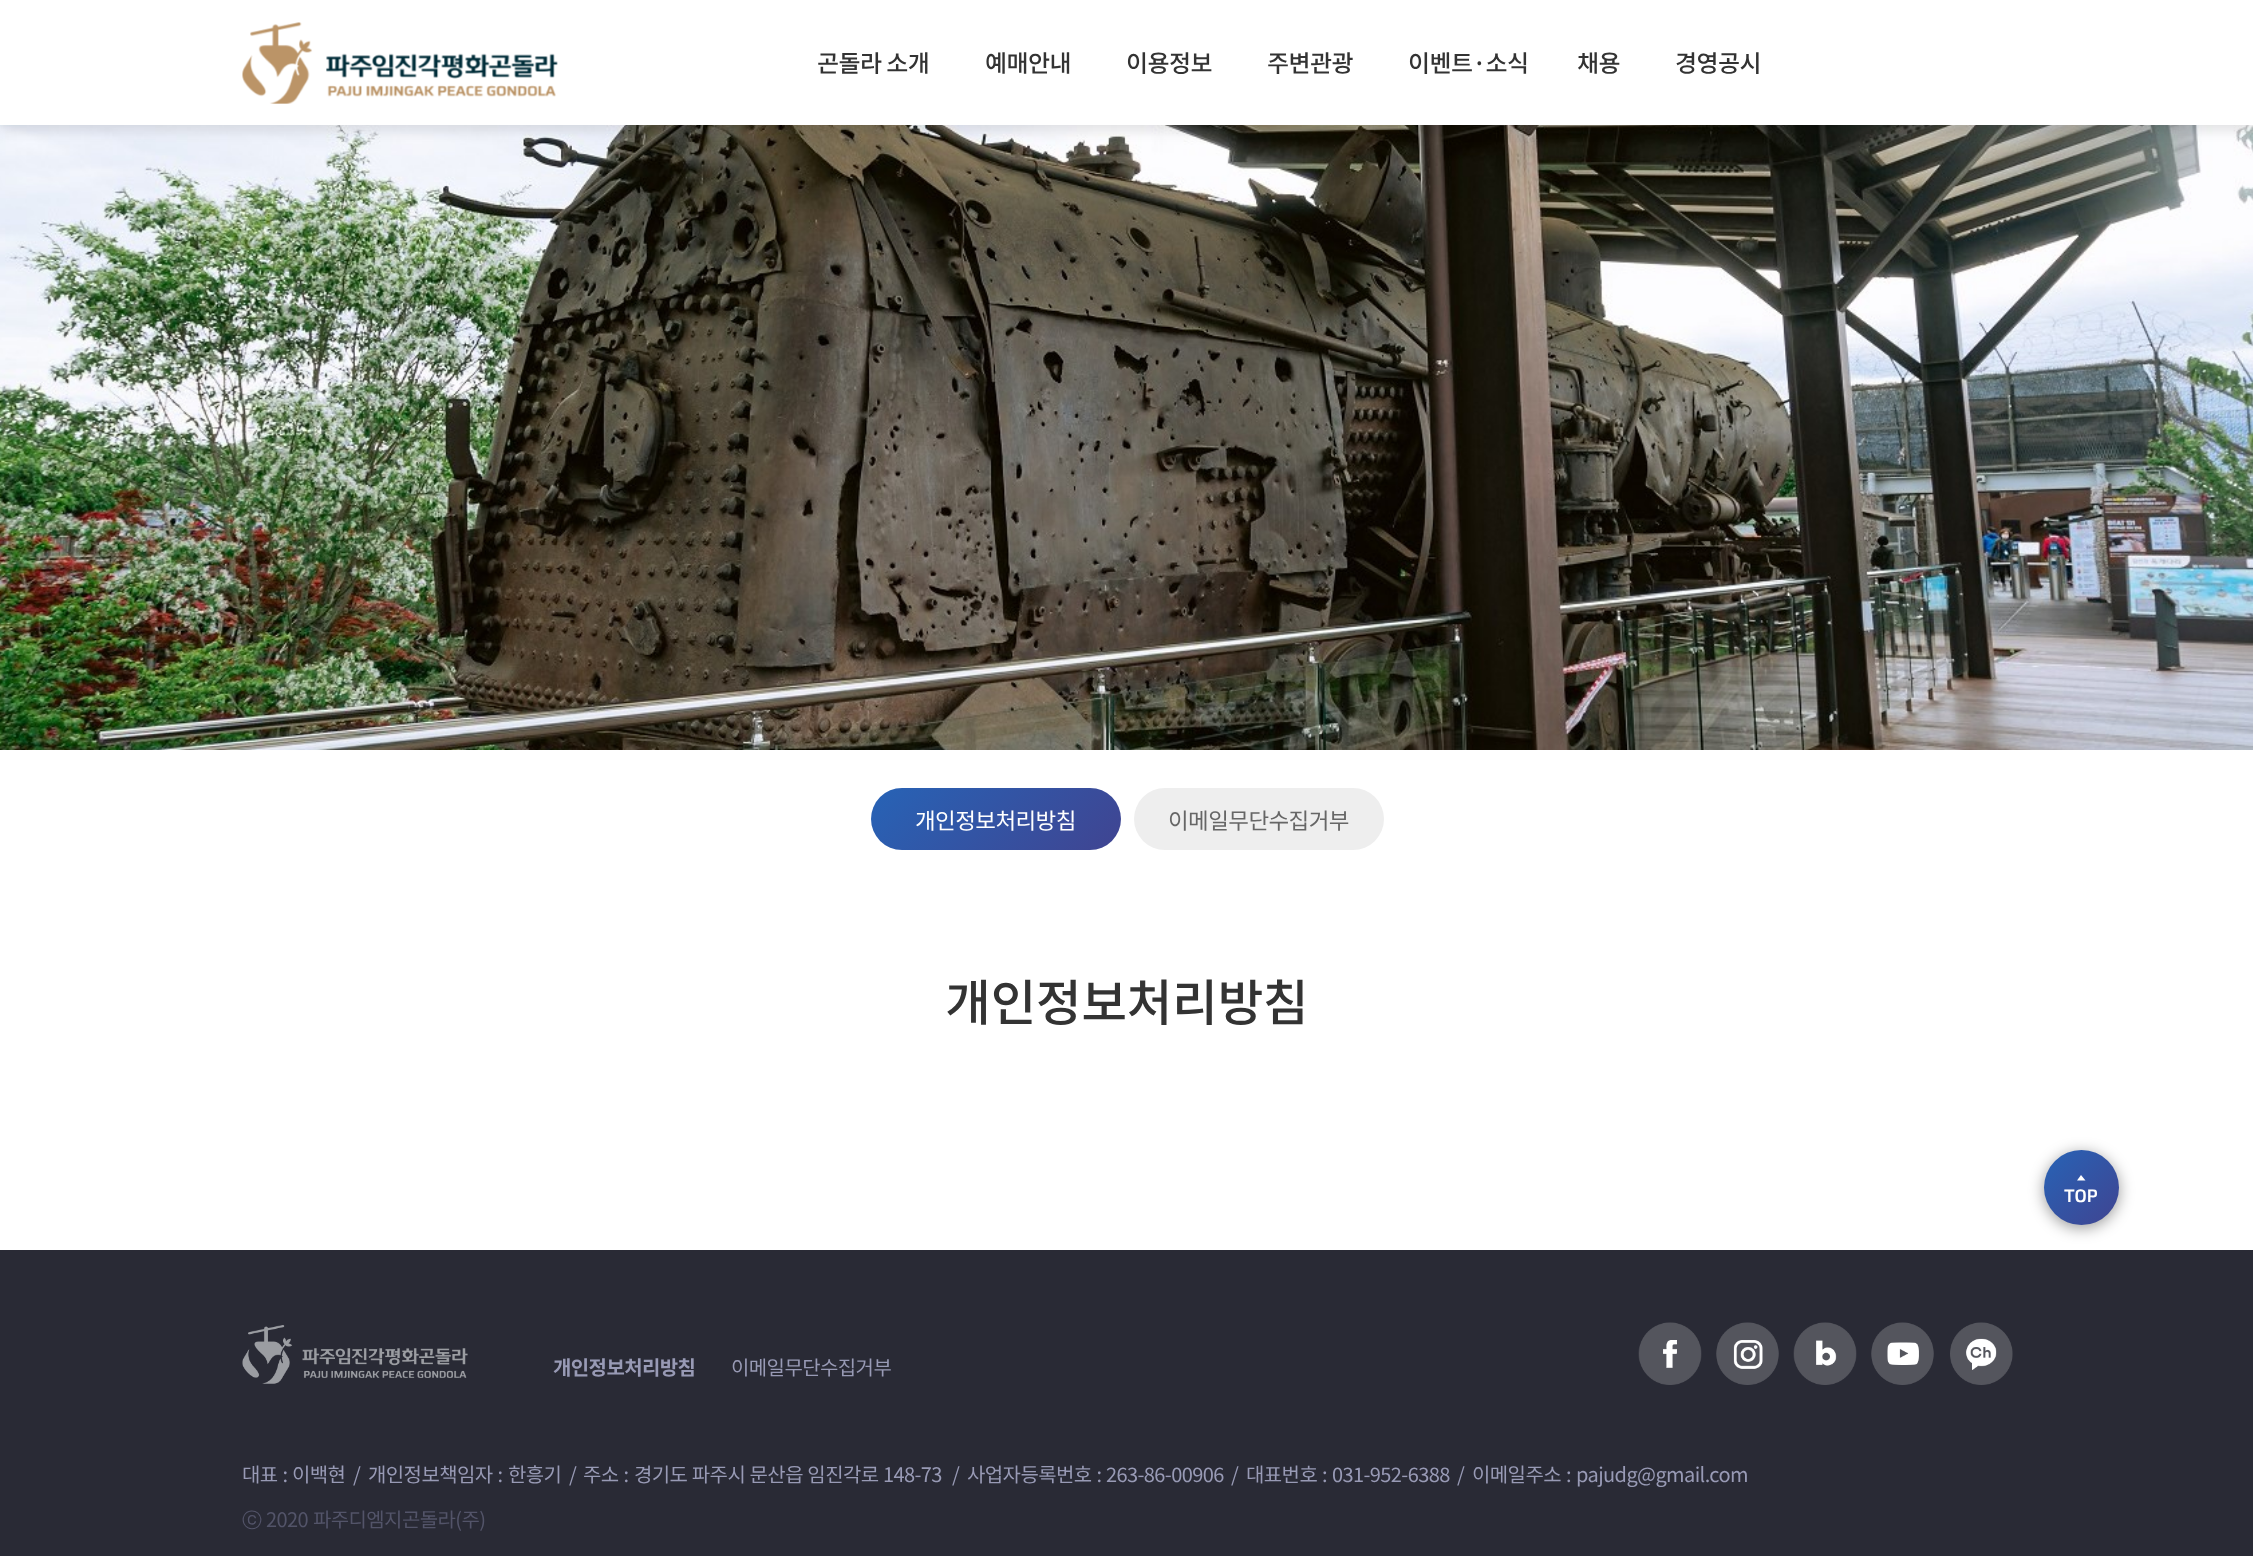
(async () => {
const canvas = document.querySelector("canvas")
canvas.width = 2253
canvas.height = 1556
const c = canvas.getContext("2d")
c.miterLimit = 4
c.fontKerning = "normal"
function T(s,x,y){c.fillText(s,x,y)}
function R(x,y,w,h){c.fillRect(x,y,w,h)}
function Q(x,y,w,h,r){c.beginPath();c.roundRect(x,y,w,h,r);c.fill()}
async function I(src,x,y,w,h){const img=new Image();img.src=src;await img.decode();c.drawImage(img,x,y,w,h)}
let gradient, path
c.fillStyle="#fff"
R(0,0,2253,1556)
await I("2.png",0,125,2253,625)
c.fillStyle="#0000001a"
c.filter="blur(6px)"
c.beginPath()
c.rect(0,6,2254,125)
c.fill()
c.filter="none"
c.fillStyle="#fff"
R(0,0,2253,125)
await I("1.png",242,22,316,82)
c.letterSpacing="-0.6px"
c.font="500 24px Noto Sans KR"
c.fillStyle="#333"
T("곤돌라 소개",817,72)
T("예매안내",985,72)
T("이용정보",1126,72)
T("주변관광",1267,72)
T("이벤트·소식",1408,72)
T("채용",1577,72)
T("경영공시",1675,72)
gradient = c.createLinearGradient(918,741,1074,897)
gradient.addColorStop(0,"#2763b6")
gradient.addColorStop(1,"#404491")
c.fillStyle = gradient
Q(871,788,250,62,31)
c.font="22.5px Noto Sans KR"
c.fillStyle="#fff"
T("개인정보처리방침",915,829)
c.fillStyle="#eee"
Q(1134,788,250,62,31)
c.fillStyle="#666"
T("이메일무단수집거부",1168,829)
c.font="500 50px Noto Sans KR"
c.fillStyle="#333"
T("개인정보처리방침",945,1021)
c.fillStyle="#292a35"
R(0,1250,2253,306)
c.fillStyle="#00000066"
c.filter="blur(7.5px)"
c.beginPath()
c.roundRect(2044,1153,75,75,37.5)
c.fill()
c.filter="none"
gradient = c.createLinearGradient(2044,1150,2119,1225)
gradient.addColorStop(0,"#2763b6")
gradient.addColorStop(1,"#404491")
c.fillStyle = gradient
c.beginPath()
c.arc(2081.5,1187.5,37.5,0,7)
c.fill()
c.fillStyle="#fff"
path = new Path2D("M2085.5 1180.5l-4.5-5.5l-4 5.5z")
c.fill(path)
c.letterSpacing="0px"
c.font="600 18px 'Exo 2'"
T("TOP",2064,1202)
await I("3.png",242,1325,226,59)
c.letterSpacing="-0.6px"
c.font="bold 20px Noto Sans KR"
c.fillStyle="#989ab5"
T("개인정보처리방침",553,1375)
c.font="20px Noto Sans KR"
T("이메일무단수집거부",731,1375)
await I("4.png",1638,1322,64,63)
await I("5.png",1716,1322,63,63)
await I("6.png",1793,1322,64,63)
await I("7.png",1871,1322,63,63)
await I("8.png",1950,1322,63,63)
c.wordSpacing="1px"
T("대표 :",242,1482)
c.wordSpacing="0px"
T("이백현",292,1482)
T("/",353,1482)
c.wordSpacing="1px"
T("개인정보책임자 :",368,1482)
c.wordSpacing="0px"
T("한흥기",508,1482)
T("/",569,1482)
c.wordSpacing="1px"
T("주소 :",583,1482)
c.wordSpacing="0.5px"
T("경기도 파주시 문산읍 임진각로 148-73",634,1482)
c.wordSpacing="0px"
T("/",952,1482)
c.wordSpacing="1px"
T("사업자등록번호 :",967,1482)
c.wordSpacing="0px"
T("263-86-00906",1106,1482)
T("/",1231,1482)
c.wordSpacing="1px"
T("대표번호 :",1246,1482)
c.wordSpacing="0px"
T("031-952-6388",1332,1482)
T("/",1457,1482)
c.wordSpacing="1px"
T("이메일주소 :",1472,1482)
c.wordSpacing="0px"
T("pajudg@gmail.com",1576,1482)
c.font="500 20px WenQuanYi Zen Hei"
c.fillStyle="#535469"
T("ⓒ",242,1527)
c.wordSpacing="1px"
c.font="20px Noto Sans KR"
T("2020 파주디엠지곤돌라(주)",266,1527)
})()
